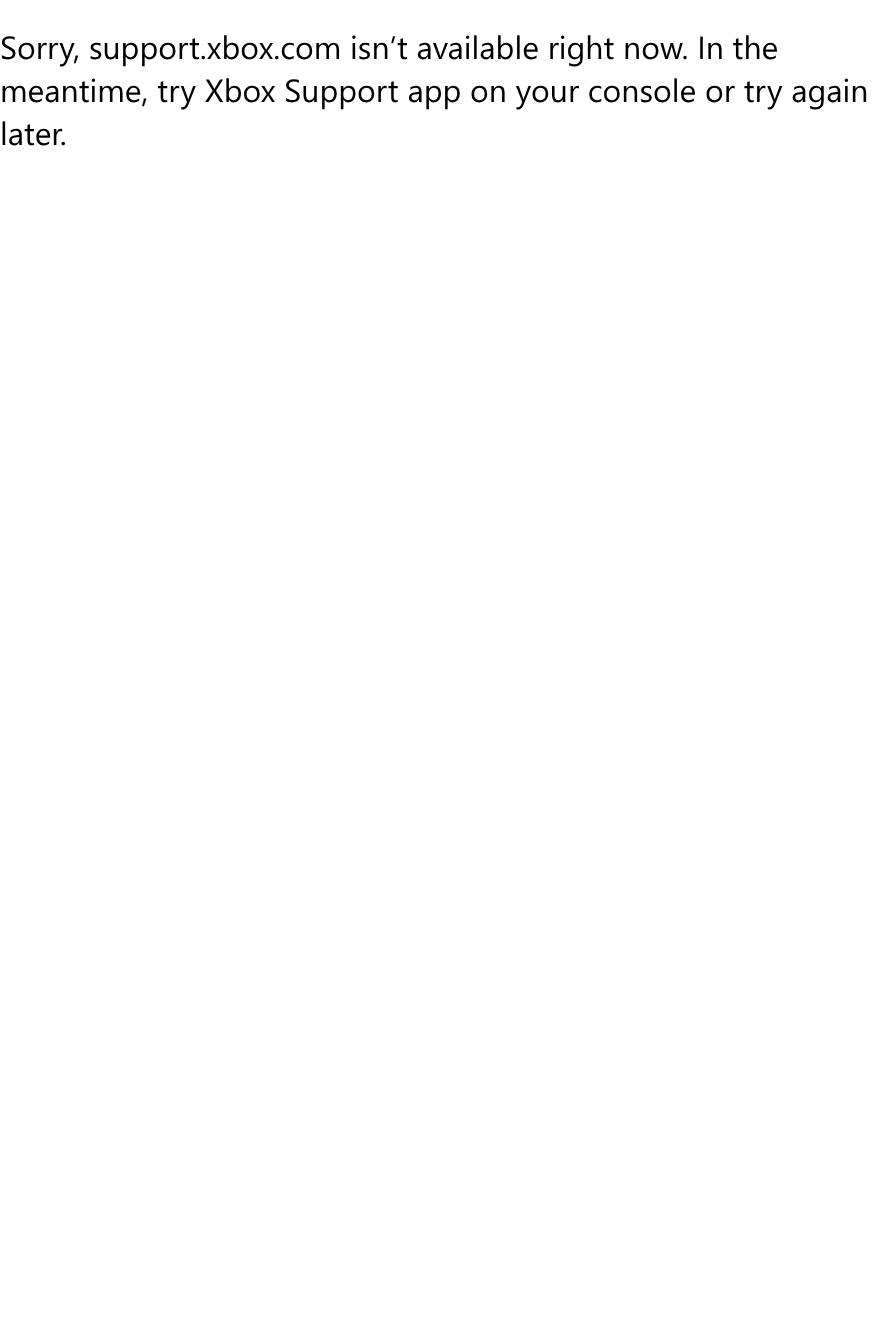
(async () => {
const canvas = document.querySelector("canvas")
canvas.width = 881
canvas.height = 1321
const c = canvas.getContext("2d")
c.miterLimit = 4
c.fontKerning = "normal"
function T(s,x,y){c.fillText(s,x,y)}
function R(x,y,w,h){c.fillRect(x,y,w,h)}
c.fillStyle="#fff"
R(0,0,881,1321)
c.font="32px Segoe UI"
c.fillStyle="#000"
T("Sorry, support.xbox.com isn’t available right now. In the",0,59)
T("meantime, try Xbox Support app on your console or try again",0,102)
T("later.",0,145)
})()
